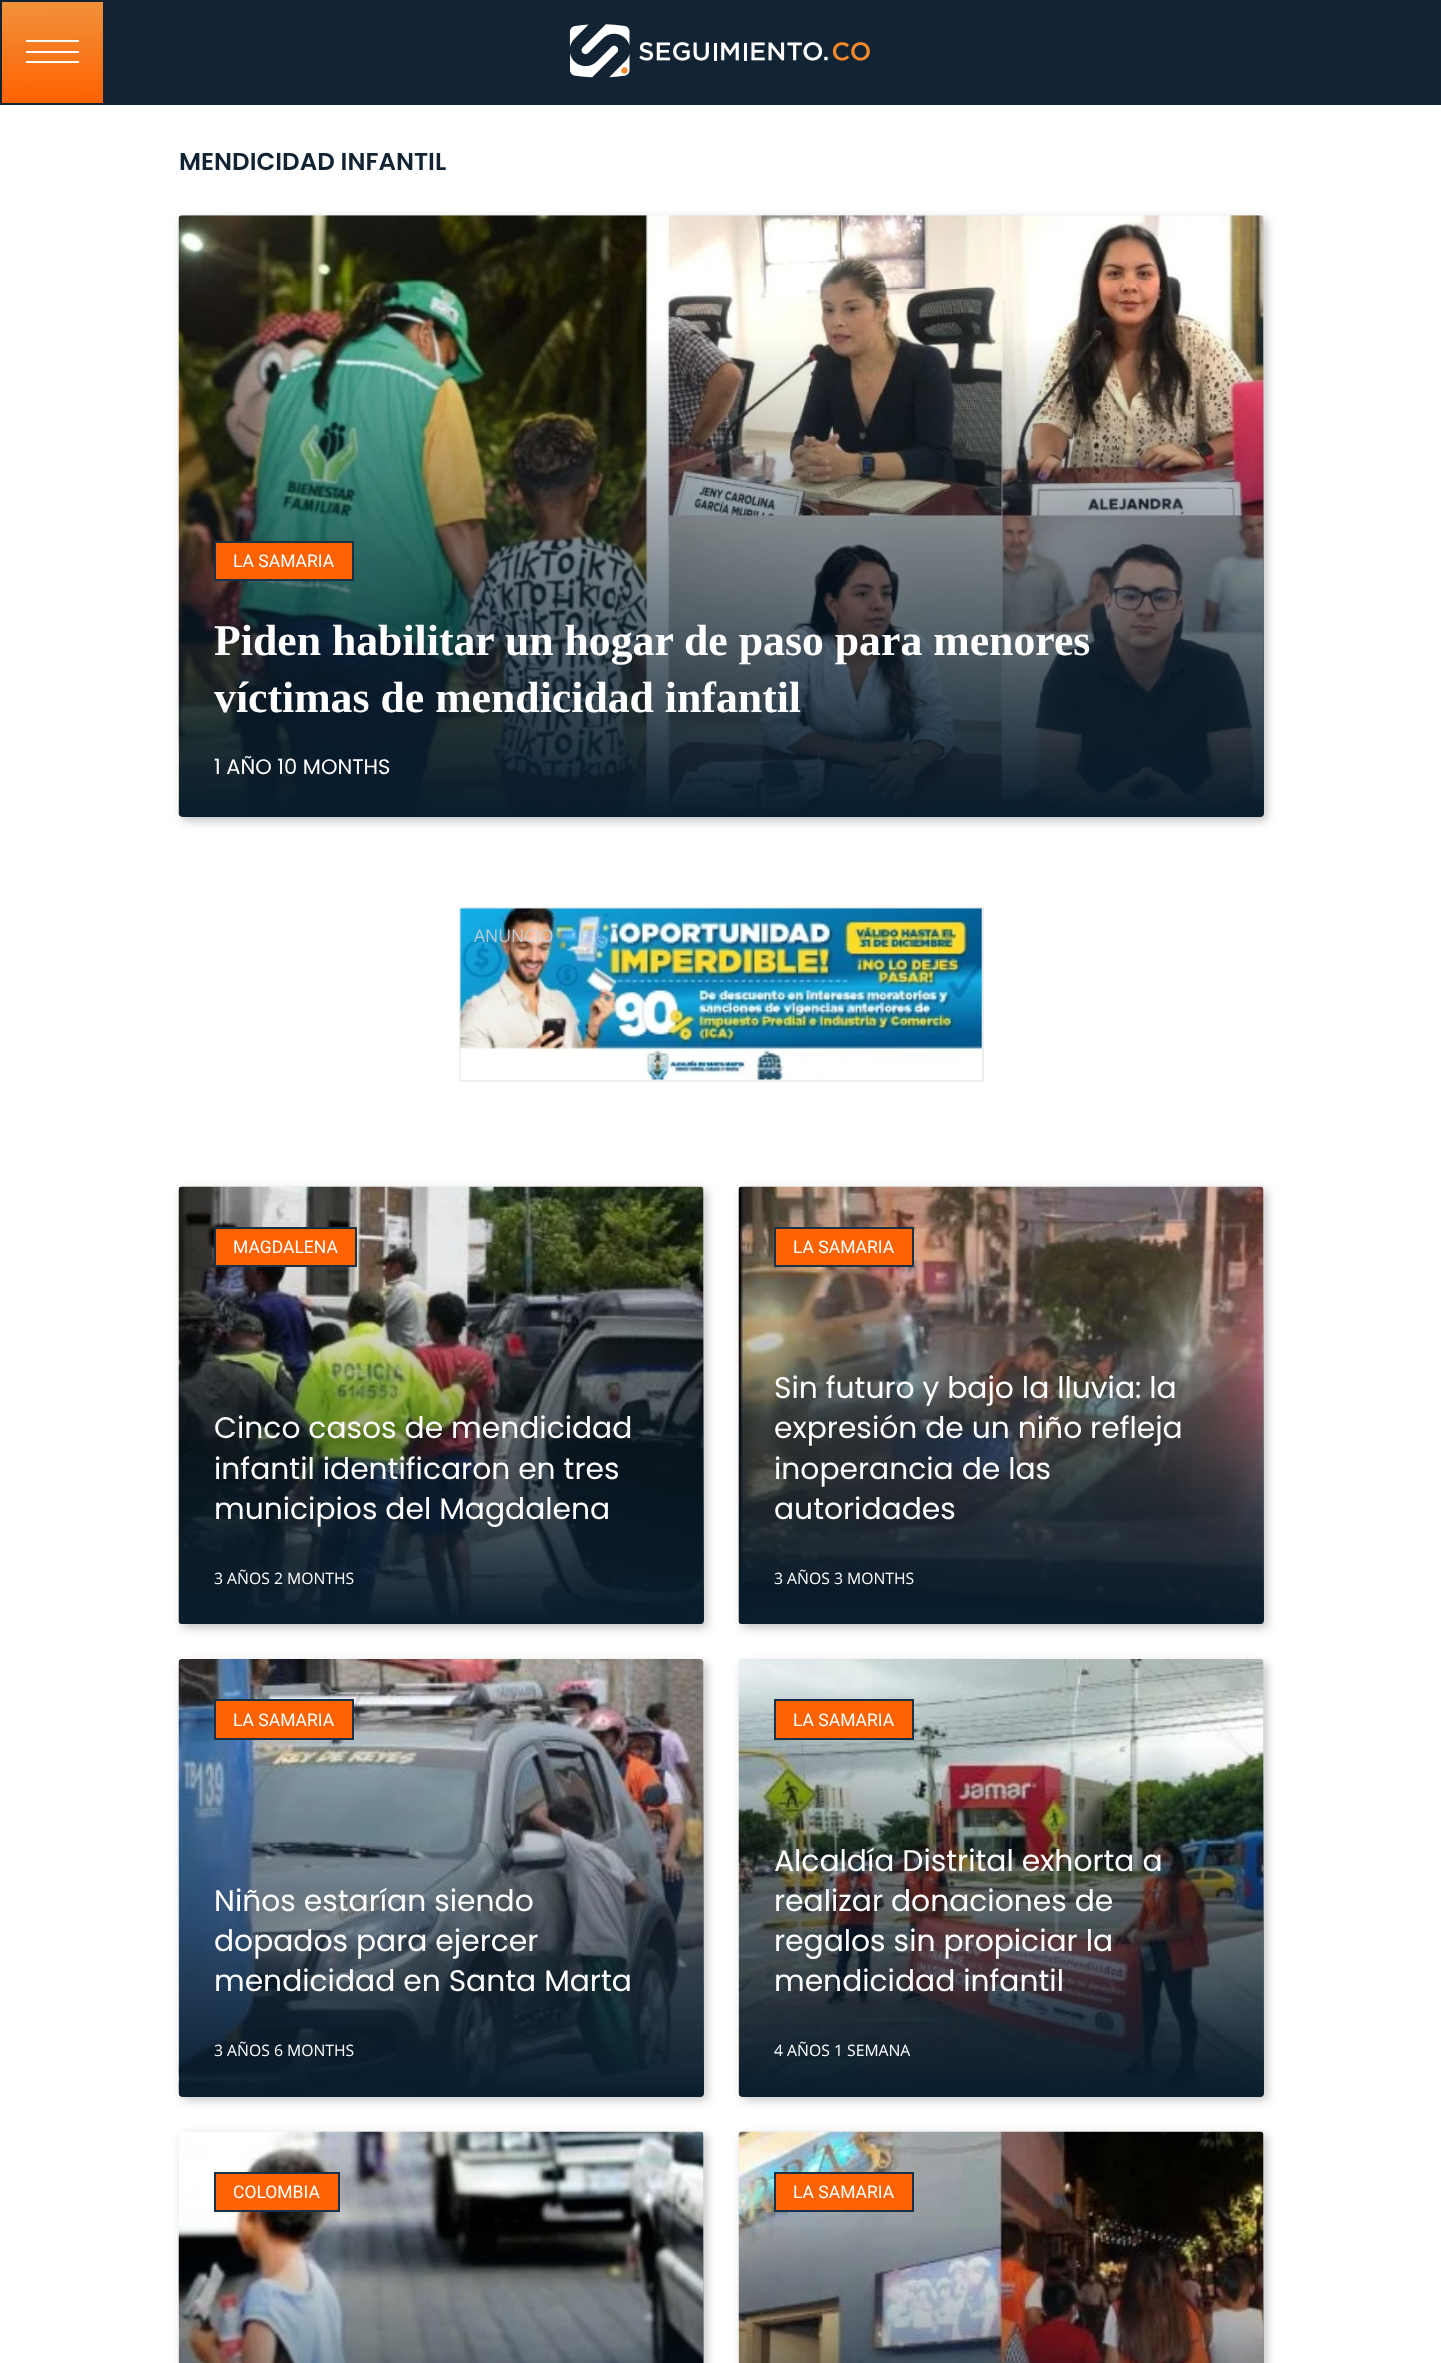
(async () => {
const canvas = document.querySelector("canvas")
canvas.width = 1441
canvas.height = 2363
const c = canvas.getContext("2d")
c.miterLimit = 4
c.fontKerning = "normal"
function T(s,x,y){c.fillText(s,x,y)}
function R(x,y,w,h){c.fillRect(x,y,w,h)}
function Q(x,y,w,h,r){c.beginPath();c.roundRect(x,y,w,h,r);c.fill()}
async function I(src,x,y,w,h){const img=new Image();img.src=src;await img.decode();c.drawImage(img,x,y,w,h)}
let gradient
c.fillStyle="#fff"
R(0,0,1441,2363)
c.fillStyle="#122433"
R(105,0,1336,105)
gradient = c.createLinearGradient(52,1.7,53,103)
gradient.addColorStop(0,"#f1913c")
gradient.addColorStop(1,"#ff6200")
c.fillStyle = gradient
R(2,2,101,101)
c.strokeStyle="#122433"
c.lineWidth=2
c.strokeRect(1,1,103,103)
c.fillStyle="#fff"
R(26,51,53,2)
R(26,40,53,2)
R(26,61,53,2)
await I("1.png",569,24,301,54)
c.font="600 24.5px Poppins"
c.fillStyle="#122433"
T("MENDICIDAD INFANTIL",179,170)
c.fillStyle="#c5c5c5"
c.filter="blur(5px)"
c.beginPath()
c.roundRect(182,219,1085,602,4)
c.fill()
c.filter="none"
await I("2.png",178,215,1086,601)
gradient = c.createLinearGradient(721,215,721,817)
gradient.addColorStop(.2,"#091d2d00")
gradient.addColorStop(1,"#091d2d")
c.fillStyle = gradient
Q(179,215,1085,602,4)
c.fillStyle="#ff6200"
c.beginPath()
c.rect(215,542,138,38)
c.fill()
c.strokeStyle="#183146"
c.stroke()
c.font="17.5px Roboto"
c.fillStyle="#fff"
T("LA SAMARIA",233,567)
c.font="bold 43.75px Liberation Serif"
T("Piden habilitar un hogar de paso para menores",214,655)
T("víctimas de mendicidad infantil",214,712)
c.font="21px Poppins"
T("1 AÑO 10 MONTHS",214,774)
c.strokeStyle="#eee"
c.strokeRect(460,908,523,173)
await I("3.png",460,908,522,172)
c.font="17.5px Open Sans"
c.fillStyle="#bfccd6"
T("ANUNCIO",474,942)
c.fillStyle="#c5c5c5"
c.filter="blur(5px)"
c.beginPath()
c.roundRect(182,1190,525,438,4)
c.fill()
c.filter="none"
await I("4.png",178,1186,526,438)
c.fillStyle="#ff6200"
c.beginPath()
c.rect(215,1228,141,38)
c.fill()
c.strokeStyle="#183146"
c.stroke()
c.font="17.5px Roboto"
c.fillStyle="#fff"
T("MAGDALENA",233,1253)
gradient = c.createLinearGradient(441,1187,441,1624)
gradient.addColorStop(.2,"#091d2d00")
gradient.addColorStop(1,"#091d2d")
c.fillStyle = gradient
Q(179,1187,525,437,4)
c.font="29.75px Poppins"
c.fillStyle="#fff"
T("Cinco casos de mendicidad",214,1438)
T("infantil identificaron en tres",214,1479)
T("municipios del Magdalena",214,1519)
c.font="15.75px Open Sans"
T("3 AÑOS 2 MONTHS",214,1584)
c.fillStyle="#c5c5c5"
c.filter="blur(5px)"
c.beginPath()
c.roundRect(742,1190,525,438,4)
c.fill()
c.filter="none"
await I("5.png",738,1186,526,438)
c.fillStyle="#ff6200"
c.beginPath()
c.rect(775,1228,138,38)
c.fill()
c.stroke()
c.font="17.5px Roboto"
c.fillStyle="#fff"
T("LA SAMARIA",793,1253)
gradient = c.createLinearGradient(1001,1187,1001,1624)
gradient.addColorStop(.2,"#091d2d00")
gradient.addColorStop(1,"#091d2d")
c.fillStyle = gradient
Q(739,1187,525,437,4)
c.font="29.75px Poppins"
c.fillStyle="#fff"
T("Sin futuro y bajo la lluvia: la",774,1398)
T("expresión de un niño refleja",774,1438)
T("inoperancia de las",774,1479)
T("autoridades",774,1519)
c.font="15.75px Open Sans"
T("3 AÑOS 3 MONTHS",774,1584)
c.fillStyle="#c5c5c5"
c.filter="blur(5px)"
c.beginPath()
c.roundRect(182,1663,525,437,4)
c.fill()
c.filter="none"
await I("6.png",178,1659,526,438)
c.fillStyle="#ff6200"
c.beginPath()
c.rect(215,1700,138,39)
c.fill()
c.stroke()
c.font="17.5px Roboto"
c.fillStyle="#fff"
T("LA SAMARIA",233,1726)
gradient = c.createLinearGradient(441,1659,441,2097)
gradient.addColorStop(.2,"#091d2d00")
gradient.addColorStop(1,"#091d2d")
c.fillStyle = gradient
Q(179,1659,525,438,4)
c.font="29.75px Poppins"
c.fillStyle="#fff"
T("Niños estarían siendo",214,1911)
T("dopados para ejercer",214,1951)
T("mendicidad en Santa Marta",214,1991)
c.font="15.75px Open Sans"
T("3 AÑOS 6 MONTHS",214,2056)
c.fillStyle="#c5c5c5"
c.filter="blur(5px)"
c.beginPath()
c.roundRect(742,1663,525,437,4)
c.fill()
c.filter="none"
await I("7.png",738,1659,526,438)
c.fillStyle="#ff6200"
c.beginPath()
c.rect(775,1700,138,39)
c.fill()
c.stroke()
c.font="17.5px Roboto"
c.fillStyle="#fff"
T("LA SAMARIA",793,1726)
gradient = c.createLinearGradient(1001,1659,1001,2097)
gradient.addColorStop(.2,"#091d2d00")
gradient.addColorStop(1,"#091d2d")
c.fillStyle = gradient
Q(739,1659,525,438,4)
c.font="29.75px Poppins"
c.fillStyle="#fff"
T("Alcaldía Distrital exhorta a",774,1871)
T("realizar donaciones de",774,1911)
T("regalos sin propiciar la",774,1951)
T("mendicidad infantil",774,1991)
c.font="15.75px Open Sans"
T("4 AÑOS 1 SEMANA",774,2056)
c.fillStyle="#c5c5c5"
c.filter="blur(5px)"
c.beginPath()
c.roundRect(182,2135,525,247,4)
c.fill()
c.filter="none"
await I("8.png",178,2131,526,232)
c.fillStyle="#ff6200"
c.beginPath()
c.rect(215,2173,124,38)
c.fill()
c.stroke()
c.font="17.5px Roboto"
c.fillStyle="#fff"
T("COLOMBIA",233,2198)
gradient = c.createLinearGradient(441,2132,441,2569)
gradient.addColorStop(.2,"#091d2d00")
gradient.addColorStop(1,"#091d2d")
c.fillStyle = gradient
R(179,2227,525,136)
c.fillStyle="#c5c5c5"
c.filter="blur(5px)"
c.beginPath()
c.roundRect(742,2135,525,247,4)
c.fill()
c.filter="none"
await I("9.png",738,2131,526,232)
c.fillStyle="#ff6200"
c.beginPath()
c.rect(775,2173,138,38)
c.fill()
c.stroke()
c.fillStyle="#fff"
T("LA SAMARIA",793,2198)
gradient = c.createLinearGradient(1001,2132,1001,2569)
gradient.addColorStop(.2,"#091d2d00")
gradient.addColorStop(1,"#091d2d")
c.fillStyle = gradient
R(739,2227,525,136)
})()
